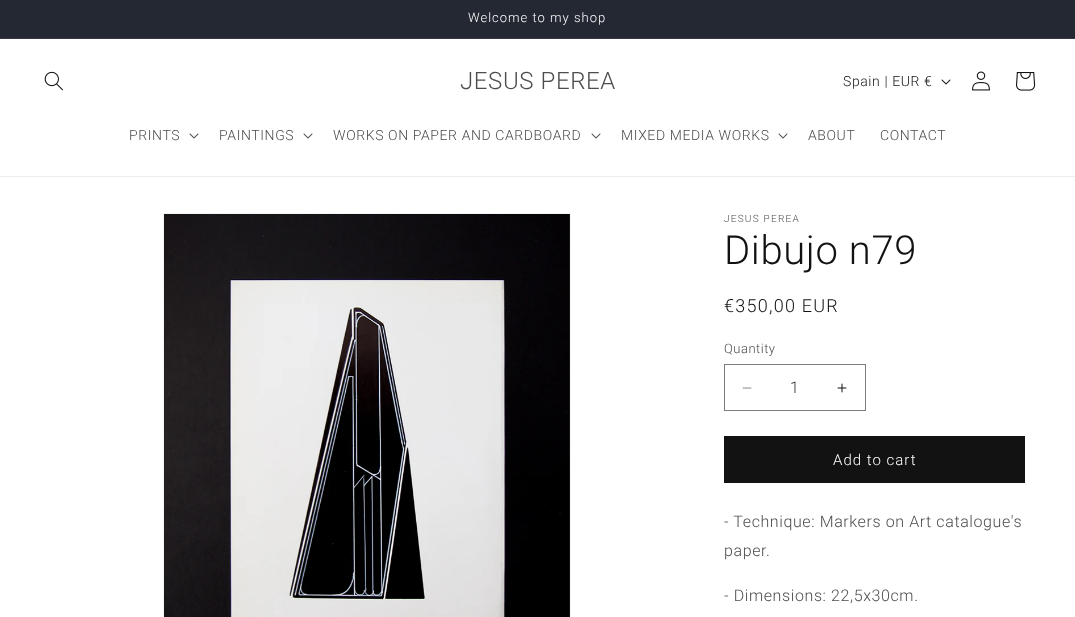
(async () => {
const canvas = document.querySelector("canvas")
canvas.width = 1075
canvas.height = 617
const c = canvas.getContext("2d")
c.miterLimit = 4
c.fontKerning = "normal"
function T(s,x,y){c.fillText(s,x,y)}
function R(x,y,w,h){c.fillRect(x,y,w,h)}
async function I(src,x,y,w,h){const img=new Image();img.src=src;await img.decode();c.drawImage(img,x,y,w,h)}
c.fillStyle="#fff"
R(0,0,1075,617)
c.fillStyle="#242833"
R(0,0,1075,38)
c.fillStyle="#363943"
R(0,38,1075,1)
c.letterSpacing="1px"
c.font="300 13px Roboto"
c.fillStyle="#fff"
T("Welcome to my shop",468,22)
c.fillStyle="#ececec"
R(0,176,1075,1)
await I("1.png",44,71,19,20)
c.letterSpacing="0.6px"
c.font="300 24px Roboto"
c.fillStyle="#4d4d4d"
T("JESUS PEREA",460,89)
c.font="300 14px Roboto"
c.fillStyle="#121212"
T("Spain | EUR €",843,86)
await I("2.png",941,79,10,6)
await I("3.png",972,71,18,20)
await I("4.png",1016,72,20,19)
c.fillStyle="#4d4d4d"
T("PRINTS",129,140)
await I("5.png",189,133,10,6)
T("PAINTINGS",219,140)
await I("5.png",303,133,10,6)
T("WORKS ON PAPER AND CARDBOARD",333,140)
await I("5.png",591,133,10,6)
T("MIXED MEDIA WORKS",621,140)
await I("5.png",778,133,10,6)
T("ABOUT",808,140)
T("CONTACT",880,140)
c.strokeStyle="#f3f3f3"
c.strokeRect(163.5,213.5,407,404)
await I("6.png",164,214,406,403)
c.letterSpacing="1.25px"
c.font="300 10px Roboto"
T("JESUS PEREA",724,222)
c.letterSpacing="0.6px"
c.font="300 40px Roboto"
c.fillStyle="#121212"
T("Dibujo n79",724,264)
c.letterSpacing="1.25px"
c.font="300 18px Roboto"
T("€350,00 EUR",724,312)
c.letterSpacing="0.5px"
c.font="300 13px Roboto"
c.fillStyle="#4d4d4d"
T("Quantity",724,353)
await I("7.png",742,387,10,2)
await I("8.png",837,383,10,10)
c.strokeStyle="#7d7d7d"
c.strokeRect(724.5,364.5,141,46)
c.letterSpacing="0px"
c.font="300 16px Roboto"
c.fillStyle="#363636"
T("1",790,393)
c.fillStyle="#121212"
R(724,436,301,47)
c.letterSpacing="1px"
c.font="300 15px Roboto"
c.fillStyle="#fff"
T("Add to cart",833,465)
c.letterSpacing="0.6px"
c.font="300 16px Roboto"
c.fillStyle="#4d4d4d"
T("- Technique: Markers on Art catalogue's",724,527)
T("paper.",724,556)
T("- Dimensions: 22,5x30cm.",724,601)
})()
